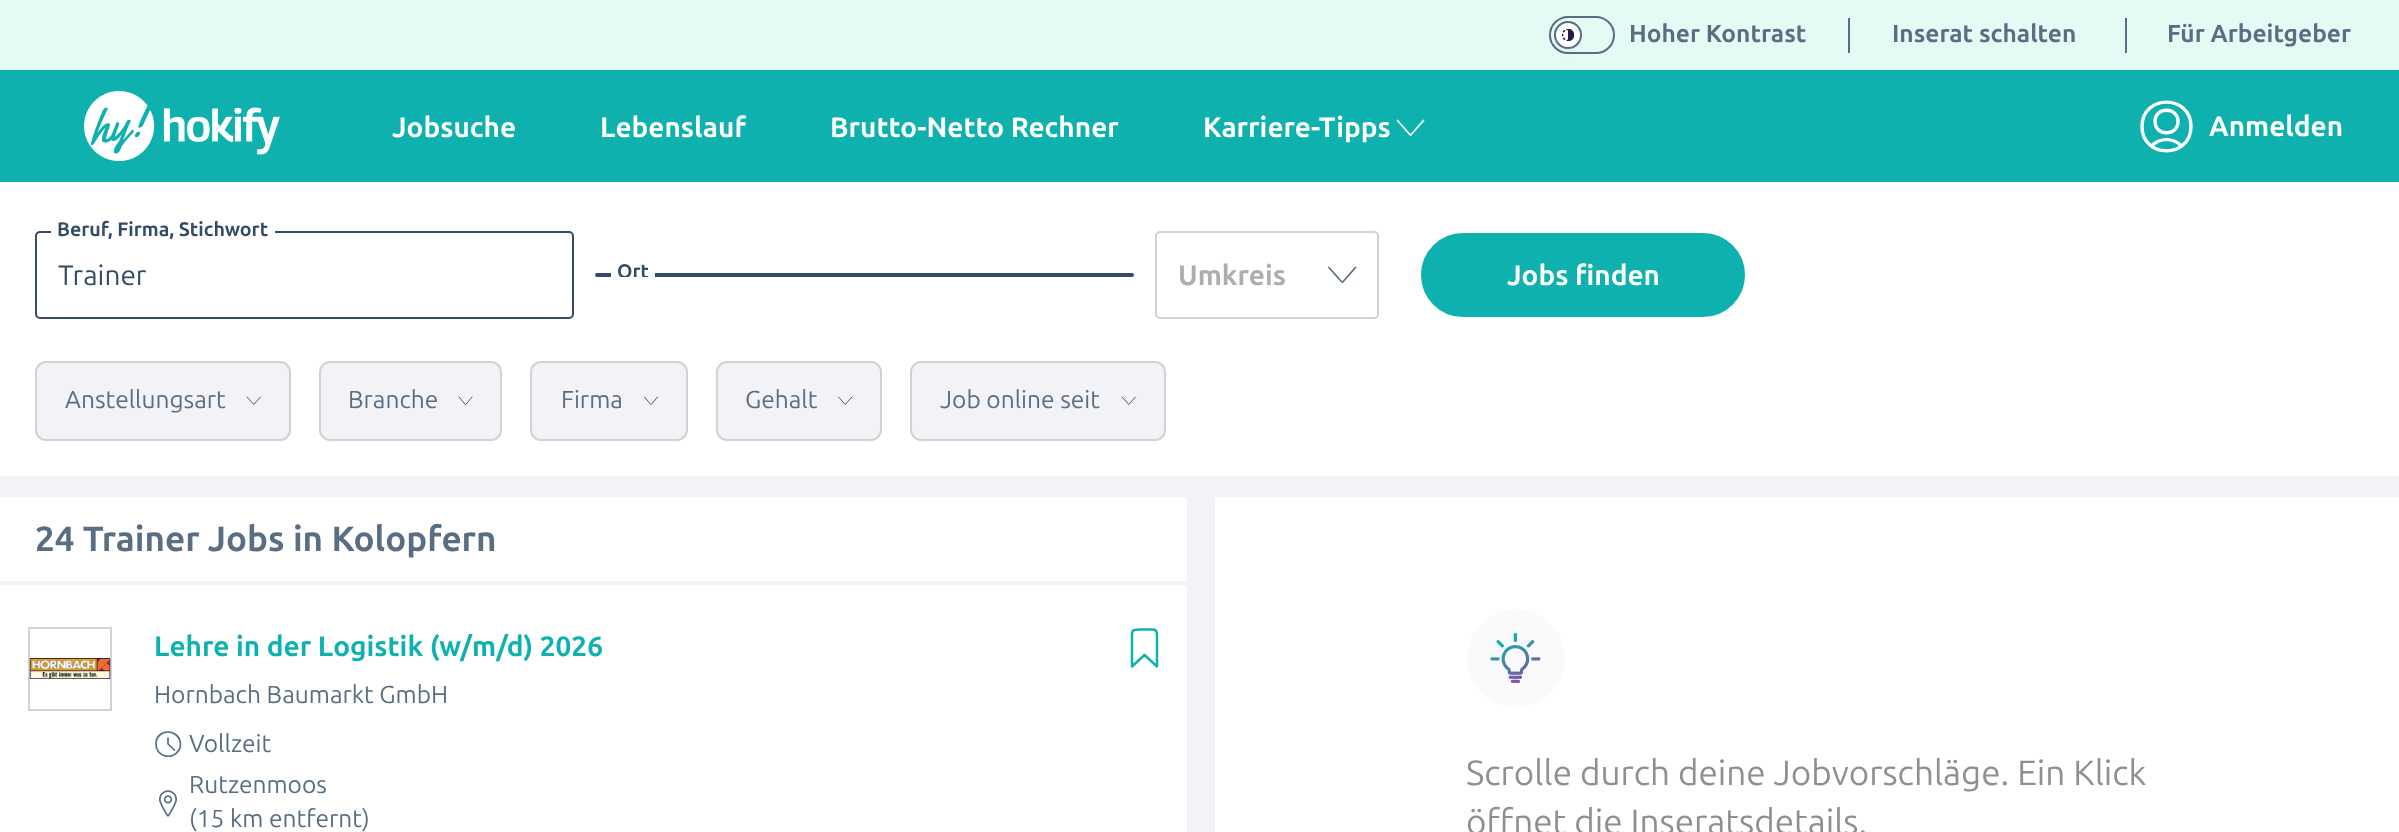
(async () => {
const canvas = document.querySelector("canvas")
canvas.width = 2399
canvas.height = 832
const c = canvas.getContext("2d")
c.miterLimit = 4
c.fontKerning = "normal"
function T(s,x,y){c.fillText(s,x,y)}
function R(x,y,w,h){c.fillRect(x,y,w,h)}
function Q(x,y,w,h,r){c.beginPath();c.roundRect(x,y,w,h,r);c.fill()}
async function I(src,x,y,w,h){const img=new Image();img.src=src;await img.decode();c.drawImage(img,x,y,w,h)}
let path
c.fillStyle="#fff"
R(0,0,2399,832)
c.fillStyle="#0fb1af"
R(0,70,2399,112)
c.fillStyle="#e5f9f5"
R(0,0,2399,70)
c.beginPath()
c.roundRect(1550,17,64,36,18)
c.strokeStyle="#596d83"
c.lineWidth=2
c.stroke()
c.fillStyle="#0000001a"
c.filter="blur(5px)"
c.beginPath()
c.roundRect(1561,35,14,14,7)
c.fill()
c.filter="none"
c.fillStyle="#fff"
c.beginPath()
c.arc(1568,35,13,0,7)
c.fill()
c.stroke()
await I("1.png",1562,29,12,12)
c.font="bold 24.5px Ubuntu"
c.fillStyle="#596d83"
T("Hoher Kontrast",1629,42)
R(1848,18,2,35)
T("Inserat schalten",1892,42)
R(2125,18,2,35)
T("Für Arbeitgeber",2167,42)
await I("2.png",84,91,196,70)
c.font="bold 28px Ubuntu"
c.fillStyle="#fff"
T("Jobsuche",392,137)
T("Lebenslauf",600,137)
T("Brutto-Netto Rechner",830,137)
T("Karriere-Tipps",1203,137)
path = new Path2D("M1397.5 120.5l10.5 12c3 3.5 2 3.5 5 0l10.5-12")
c.strokeStyle="#fff"
c.lineWidth=1.7
c.lineCap="round"
c.lineJoin="round"
c.stroke(path)
path = new Path2D("M2155 121.5c0 15 23 15 23 0c0-15-23-15-23 0zm26.5 24.5c-8-8.5-22-8.5-30 0m-9.5-19.5c0 32.5 49 32.5 49 0c0-32.5-49-32.5-49 0z")
c.lineWidth=3.4
c.stroke(path)
T("Anmelden",2209,136)
c.beginPath()
c.roundRect(36,232,537,86,4)
c.strokeStyle="#334b65"
c.lineWidth=2
c.lineJoin="miter"
c.stroke()
R(51,231,224,2)
c.font="bold 19.6px Ubuntu"
c.fillStyle="#334b65"
T("Beruf, Firma, Stichwort",57,236)
c.font="28px Ubuntu"
T("Trainer",58,285)
Q(595,273,539,4,2)
c.fillStyle="#fff"
R(611,273,44,4)
c.save()
c.beginPath()
c.rect(595,245,539,32)
c.clip()
c.font="bold 19.6px Ubuntu"
c.fillStyle="#334b65"
T("Ort",617,278)
c.restore()
c.beginPath()
c.roundRect(1156,232,222,86,4)
c.strokeStyle="#d1d1d6"
c.stroke()
c.font="bold 28px Ubuntu"
c.fillStyle="#aeaeb2"
T("Umkreis",1178,285)
path = new Path2D("M1329 267.5l10.5 12c3.5 3.5 2.5 3.5 5.5 0l10.5-12")
c.strokeStyle="#596d83"
c.lineWidth=1.7
c.lineJoin="round"
c.stroke(path)
c.fillStyle="#0fb1af"
c.beginPath()
c.roundRect(1422,234,322,82,41)
c.fill()
c.strokeStyle="#0fb1af"
c.lineWidth=2
c.lineJoin="miter"
c.stroke()
c.fillStyle="#fff"
T("Jobs finden",1507,285)
c.fillStyle="#f2f2f7"
c.beginPath()
c.roundRect(36,362,254,78,10)
c.fill()
c.strokeStyle="#d1d1d6"
c.stroke()
c.font="24.5px Ubuntu"
c.fillStyle="#596d83"
T("Anstellungsart",65,408)
path = new Path2D("M247 397l5.5 6c1.5 2 1 2 2.5 0l5.5-6")
c.strokeStyle="#334b65"
c.lineWidth=0.9
c.lineJoin="round"
c.stroke(path)
c.fillStyle="#f2f2f7"
c.beginPath()
c.roundRect(320,362,181,78,10)
c.fill()
c.strokeStyle="#d1d1d6"
c.lineWidth=2
c.lineJoin="miter"
c.stroke()
c.fillStyle="#596d83"
T("Branche",348,408)
path = new Path2D("M459 397l5 6c1.5 2 1.5 2 3 0l5-6")
c.strokeStyle="#334b65"
c.lineWidth=0.9
c.lineJoin="round"
c.stroke(path)
c.fillStyle="#f2f2f7"
c.beginPath()
c.roundRect(531,362,156,78,10)
c.fill()
c.strokeStyle="#d1d1d6"
c.lineWidth=2
c.lineJoin="miter"
c.stroke()
c.fillStyle="#596d83"
T("Firma",561,408)
path = new Path2D("M644.5 397l5 6c1.5 2 1.5 2 3 0l5-6")
c.strokeStyle="#334b65"
c.lineWidth=0.9
c.lineJoin="round"
c.stroke(path)
c.fillStyle="#f2f2f7"
c.beginPath()
c.roundRect(717,362,164,78,10)
c.fill()
c.strokeStyle="#d1d1d6"
c.lineWidth=2
c.lineJoin="miter"
c.stroke()
c.fillStyle="#596d83"
T("Gehalt",745,408)
path = new Path2D("M838.5 397l5.5 6c1.5 2 1 2 2.5 0l5.5-6")
c.strokeStyle="#334b65"
c.lineWidth=0.9
c.lineJoin="round"
c.stroke(path)
c.fillStyle="#f2f2f7"
c.beginPath()
c.roundRect(911,362,254,78,10)
c.fill()
c.strokeStyle="#d1d1d6"
c.lineWidth=2
c.lineJoin="miter"
c.stroke()
c.fillStyle="#596d83"
T("Job online seit",940,408)
path = new Path2D("M1122 397l5.5 6c1.5 2 1 2 2.5 0l5.5-6")
c.strokeStyle="#334b65"
c.lineWidth=0.9
c.lineJoin="round"
c.stroke(path)
c.fillStyle="#f2f2f7"
R(0,476,2399,356)
c.fillStyle="#fff"
R(0,497,1187,335)
c.font="bold 35px Ubuntu"
c.fillStyle="#596d83"
T("24 Trainer Jobs in Kolopfern",35,551)
c.fillStyle="#f2f2f7"
R(0,581,1187,4)
c.strokeStyle="#d1d1d6"
c.lineWidth=2
c.lineJoin="miter"
c.strokeRect(29,628,82,82)
await I("3.png",29,658,82,21)
c.font="bold 28px Ubuntu"
c.fillStyle="#0fb1af"
T("Lehre in der Logistik (w/m/d) 2026",154,656)
c.font="24.5px Ubuntu"
c.fillStyle="#596d83"
T("Hornbach Baumarkt GmbH",154,703)
path = new Path2D("M156 744c-.5 12.5 16.5 17 23 6c1-1.5 1.5-4 1.5-6c-1-16-24.5-16-24.5 0zm12-6v6l6.5 6")
c.strokeStyle="#596d83"
c.lineWidth=1.7
c.lineJoin="round"
c.stroke(path)
T("Vollzeit",189,752)
await I("4.png",159,790,18,27)
T("Rutzenmoos",189,793)
T("(15 km entfernt)",189,827)
path = new Path2D("M1153 629.5h-14c-8 0-7 2-7 9.5v27.5l12.5-11.5l12.5 11.5v-27.5c0-3 1-9.5-4-9.5z")
c.strokeStyle="#0fb1af"
c.lineWidth=2.5
c.stroke(path)
c.fillStyle="#fff"
R(1215,497,1184,335)
c.fillStyle="#fafafd"
c.beginPath()
c.arc(1516,658,49,0,7)
c.fill()
await I("5.png",1490,632,51,51)
c.font="35px Ubuntu"
c.fillStyle="#8e8e93"
T("Scrolle durch deine Jobvorschläge. Ein Klick",1466,785)
T("öffnet die Inseratsdetails.",1466,834)
})()
